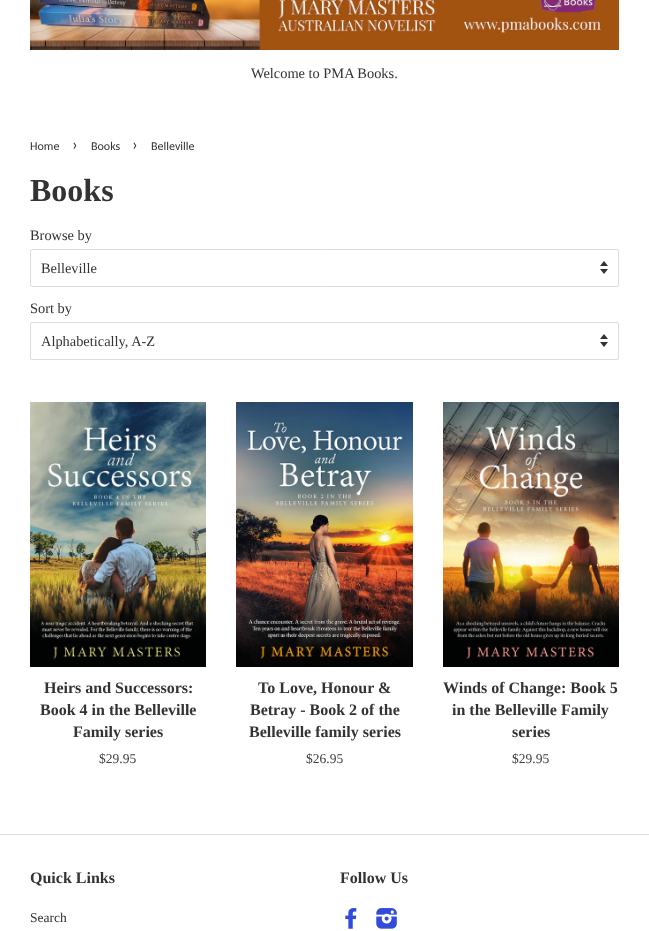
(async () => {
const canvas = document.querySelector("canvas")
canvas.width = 649
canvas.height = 931
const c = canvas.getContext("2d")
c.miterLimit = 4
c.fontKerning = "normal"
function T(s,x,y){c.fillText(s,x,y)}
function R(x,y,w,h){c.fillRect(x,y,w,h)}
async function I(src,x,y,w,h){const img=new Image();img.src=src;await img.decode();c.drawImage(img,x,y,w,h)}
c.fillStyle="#fff"
R(0,0,649,931)
await I("1.png",30,0,589,50)
c.font="14.4px Liberation Serif"
c.fillStyle="#333"
T("Welcome to PMA Books.",251,78)
c.font="12px Carlito"
T("Home",30,150)
c.font="17px Carlito"
T("›",72,150)
c.font="12px Carlito"
T("Books",91,150)
c.font="17px Carlito"
T("›",132,150)
c.font="12px Carlito"
T("Belleville",151,150)
c.font="bold 32px Liberation Serif"
T("Books",30,201)
c.font="14.4px Liberation Serif"
T("Browse by",30,240)
await I("2.png",600,261,8,13)
c.beginPath()
c.roundRect(30.5,249.5,588,37,1.5)
c.strokeStyle="#ddd"
c.stroke()
T("Belleville",41,273)
T("Sort by",30,313)
await I("2.png",600,334,8,13)
c.beginPath()
c.roundRect(30.5,322.5,588,37,1.5)
c.stroke()
T("Alphabetically, A-Z",41,346)
await I("3.png",30,402,176,265)
c.font="bold 16px Liberation Serif"
T("Heirs and Successors:",44,693)
T("Book 4 in the Belleville",40,715)
T("Family series",73,737)
c.font="13.5px Liberation Serif"
c.fillStyle="#3d3d3d"
T("$29.95",99,763)
await I("4.png",236,402,177,265)
c.font="bold 16px Liberation Serif"
c.fillStyle="#333"
T("To Love, Honour &",258,693)
T("Betray - Book 2 of the",250,715)
T("Belleville family series",249,737)
c.font="13.5px Liberation Serif"
c.fillStyle="#3d3d3d"
T("$26.95",306,763)
await I("5.png",443,402,176,265)
c.font="bold 16px Liberation Serif"
c.fillStyle="#333"
T("Winds of Change: Book 5",443,693)
T("in the Belleville Family",452,715)
T("series",512,737)
c.font="13.5px Liberation Serif"
c.fillStyle="#3d3d3d"
T("$29.95",512,763)
c.fillStyle="#ddd"
R(0,834,649,1)
c.font="bold 16px Liberation Serif"
c.fillStyle="#333"
T("Quick Links",30,883)
c.font="13.5px Liberation Serif"
T("Search",30,922)
c.font="bold 16px Liberation Serif"
T("Follow Us",340,883)
await I("6.png",345,908,12,21)
await I("7.png",376,908,21,21)
})()
